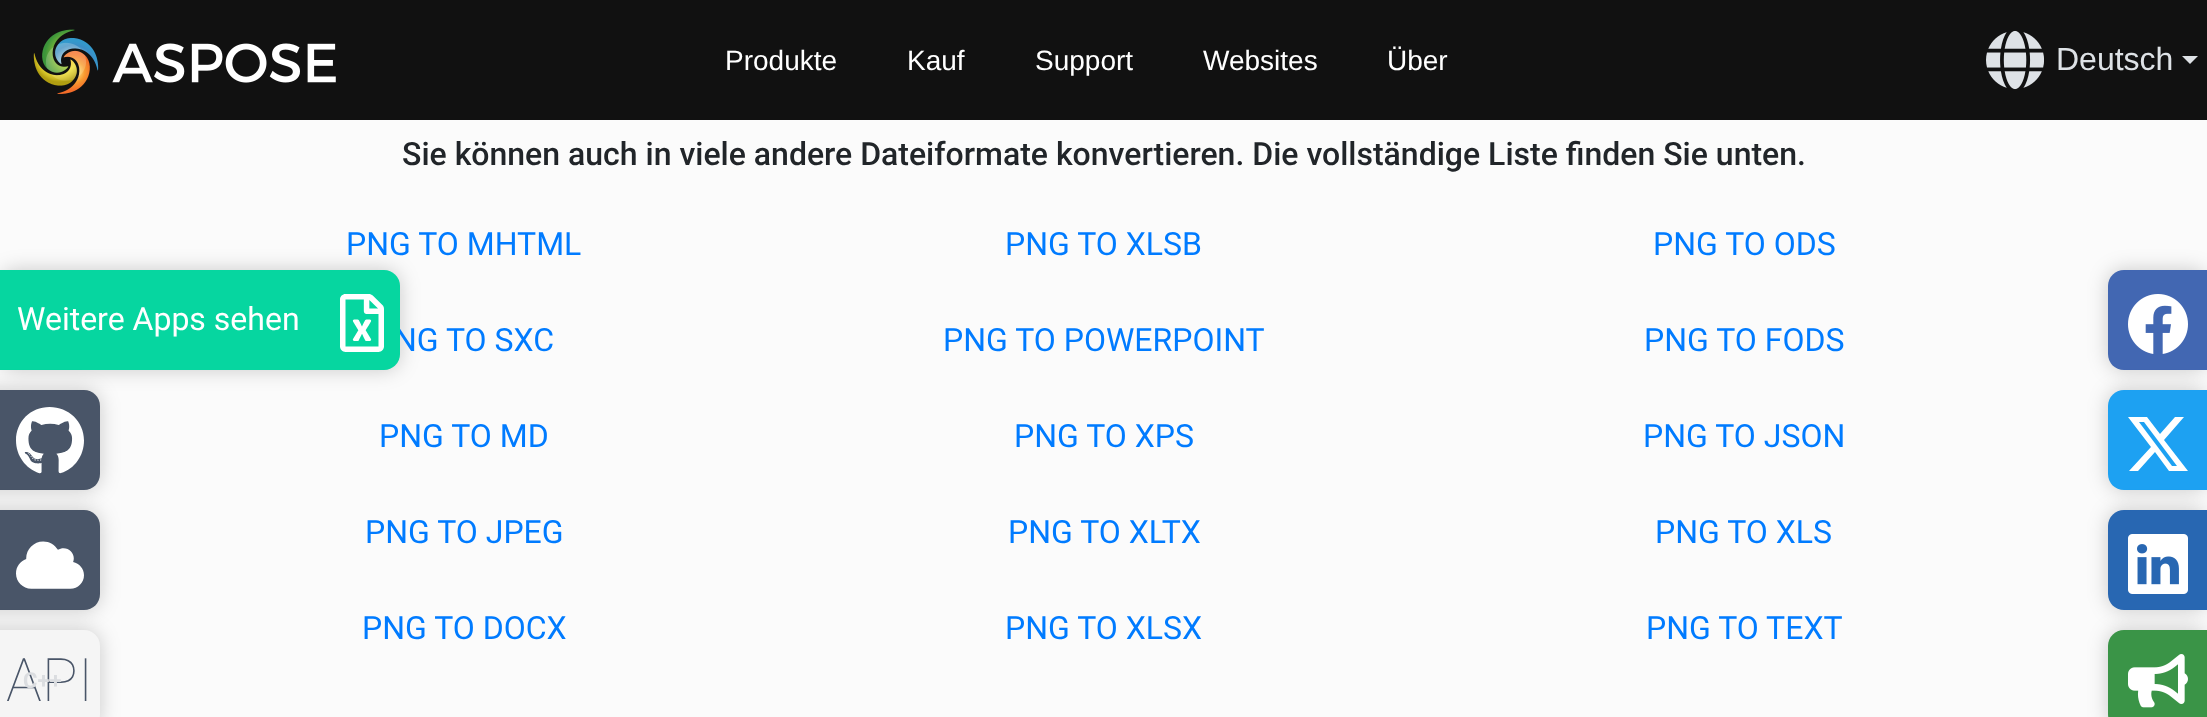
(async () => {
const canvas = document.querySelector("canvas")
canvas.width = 2207
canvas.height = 717
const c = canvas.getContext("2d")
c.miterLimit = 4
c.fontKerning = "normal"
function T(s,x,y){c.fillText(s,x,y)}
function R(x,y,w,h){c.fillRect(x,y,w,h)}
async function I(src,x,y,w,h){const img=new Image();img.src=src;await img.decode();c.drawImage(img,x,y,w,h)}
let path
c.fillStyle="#fbfbfb"
R(0,0,2207,717)
c.fillStyle="#111"
R(0,0,2207,120)
await I("1.png",33,29,303,65)
c.font="28px Liberation Sans"
c.fillStyle="#fff"
T("Produkte",725,70)
T("Kauf",907,70)
T("Support",1035,70)
T("Websites",1203,70)
T("Über",1387,70)
await I("2.png",1986,30,58,60)
c.font="32px Liberation Sans"
c.fillStyle="#dee2e6"
T("Deutsch",2056,70)
path = new Path2D("M2182 56h16l-8 8z")
c.fill(path)
c.fillStyle="#00000033"
c.filter="blur(10px)"
c.beginPath()
c.roundRect(0,270,400,100,16)
c.fill()
c.filter="none"
c.font="32px Roboto"
c.fillStyle="#007bff"
T("NG TO SXC",394,351)
c.fillStyle="#06d6a0"
c.beginPath()
c.roundRect(0,270,400,100,[0,16,16,0])
c.fill()
c.fillStyle="#fff"
T("Weitere Apps sehen",17,330)
await I("3.png",340,294,44,58)
c.fillStyle="#00000033"
c.filter="blur(10px)"
c.beginPath()
c.roundRect(-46,390,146,100,16)
c.fill()
c.filter="none"
c.fillStyle="#495568"
path = new Path2D("M-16 390h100c9 0 16 7 16 16v68c0 9-7 16-16 16h-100z")
c.fill(path)
await I("4.png",16,407,68,67)
c.fillStyle="#00000033"
c.filter="blur(10px)"
c.beginPath()
c.roundRect(-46,510,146,100,16)
c.fill()
c.filter="none"
c.fillStyle="#495568"
path = new Path2D("M-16 510h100c9 0 16 7 16 16v68c0 9-7 16-16 16h-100z")
c.fill(path)
await I("5.png",16,541,68,48)
c.fillStyle="#00000033"
c.filter="blur(10px)"
c.beginPath()
c.roundRect(-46,630,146,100,16)
c.fill()
c.filter="none"
c.fillStyle="#f5f5f5"
path = new Path2D("M-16 630h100c9 0 16 7 16 16v68c0 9-7 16-16 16h-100z")
c.fill(path)
c.font="100 60px Roboto"
c.fillStyle="#495568"
T("API",6,701)
c.font="bold 22px Roboto"
c.fillStyle="#dbdde0"
T("C++",23,688)
c.fillStyle="#00000033"
c.filter="blur(10px)"
c.beginPath()
c.roundRect(2108,270,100,100,16)
c.fill()
c.filter="none"
c.fillStyle="#4267b2"
path = new Path2D("M2124 270h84v100h-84c-9 0-16-7-16-16v-68c0-9 7-16 16-16z")
c.fill(path)
await I("6.png",2128,294,60,60)
c.fillStyle="#00000033"
c.filter="blur(10px)"
c.beginPath()
c.roundRect(2108,390,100,100,16)
c.fill()
c.filter="none"
c.fillStyle="#1da1f2"
path = new Path2D("M2124 390h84v100h-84c-9 0-16-7-16-16v-68c0-9 7-16 16-16z")
c.fill(path)
c.fillStyle="#fff"
path = new Path2D("M2175 417h9l-20 23l24 31h-19l-14-19l-17 19h-9l22-24l-23-30h19l13 17zm-3 49h5l-33-44h-5z")
c.fill(path)
c.fillStyle="#00000033"
c.filter="blur(10px)"
c.beginPath()
c.roundRect(2108,510,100,100,16)
c.fill()
c.filter="none"
c.fillStyle="#2867b2"
path = new Path2D("M2124 510h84v100h-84c-9 0-16-7-16-16v-68c0-9 7-16 16-16z")
c.fill(path)
await I("7.png",2128,534,60,60)
c.fillStyle="#00000033"
c.filter="blur(10px)"
c.beginPath()
c.roundRect(2108,630,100,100,16)
c.fill()
c.filter="none"
c.fillStyle="#3a9447"
path = new Path2D("M2124 630h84v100h-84c-9 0-16-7-16-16v-68c0-9 7-16 16-16z")
c.fill(path)
await I("8.png",2128,654,60,54)
c.font="500 32px Roboto"
c.fillStyle="#212529"
T("Sie können auch in viele andere Dateiformate konvertieren. Die vollständige Liste finden Sie unten.",402,165)
c.font="32px Roboto"
c.fillStyle="#007bff"
T("PNG TO MHTML",346,255)
T("PNG TO XLSB",1005,255)
T("PNG TO ODS",1653,255)
T("PNG TO POWERPOINT",943,351)
T("PNG TO FODS",1644,351)
T("PNG TO MD",379,447)
T("PNG TO XPS",1014,447)
T("PNG TO JSON",1643,447)
T("PNG TO JPEG",365,543)
T("PNG TO XLTX",1008,543)
T("PNG TO XLS",1655,543)
T("PNG TO DOCX",362,639)
T("PNG TO XLSX",1005,639)
T("PNG TO TEXT",1646,639)
})()
